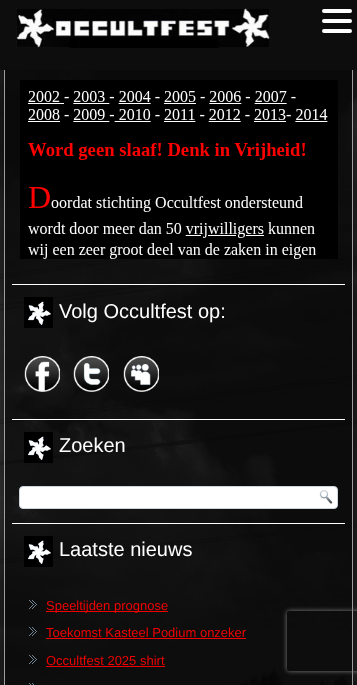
(async () => {
const canvas = document.querySelector("canvas")
canvas.width = 357
canvas.height = 685
const c = canvas.getContext("2d")
c.miterLimit = 4
c.fontKerning = "normal"
function T(s,x,y){c.fillText(s,x,y)}
function R(x,y,w,h){c.fillRect(x,y,w,h)}
function Q(x,y,w,h,r){c.beginPath();c.roundRect(x,y,w,h,r);c.fill()}
async function I(src,x,y,w,h){const img=new Image();img.src=src;await img.decode();c.drawImage(img,x,y,w,h)}
let path
c.fillStyle="#fff"
R(0,0,357,685)
await I("2.png",0,70,357,615)
c.save()
path = new Path2D("M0 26h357v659h-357zm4 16h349v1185c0 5.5-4.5 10-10 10h-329c-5.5 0-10-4.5-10-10z")
c.clip(path,"evenodd")
c.fillStyle="#0000003d"
c.filter="blur(3.5px)"
c.beginPath()
c.roundRect(0,38,357,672,14)
c.fill()
c.filter="none"
c.restore()
c.fillStyle="#0d0d0d"
R(0,0,357,70)
await I("1.png",16,8,254,40)
c.fillStyle="#fff"
Q(322,9,30,4,2)
Q(322,19,30,4,2)
Q(322,29,30,4,2)
await I("3.png",20,80,318,179)
R(12,284,333,1)
await I("4.png",24,297,29,31)
c.font="20px Liberation Sans"
T("Volg Occultfest op:",59,318)
await I("5.png",24,356,36,36)
await I("6.png",73,356,36,36)
await I("7.png",123,356,36,36)
R(12,419,333,1)
await I("8.png",24,432,29,31)
T("Zoeken",59,452)
c.beginPath()
c.roundRect(19.5,486.5,318,22,3.5)
c.fill()
c.strokeStyle="#ccd6e0"
c.stroke()
await I("9.png",319,490,14,14)
R(12,523,333,1)
await I("4.png",24,536,29,31)
T("Laatste nieuws",59,556)
await I("10.png",29,600,8,9)
c.fillStyle="#f00000"
R(46,611,122,1)
c.font="13px Liberation Sans"
T("Speeltijden prognose",46,610)
await I("11.png",29,627,8,9)
T("Toekomst Kasteel Podium onzeker",46,637)
R(46,638,200,1)
await I("12.png",29,655,8,9)
T("Occultfest 2025 shirt",46,665)
R(46,666,119,1)
await I("13.png",29,683,5,2)
c.save()
path = new Path2D("M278 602h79v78h-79zm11 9h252c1 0 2 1 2 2v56c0 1-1 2-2 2h-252c-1 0-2-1-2-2v-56c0-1 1-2 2-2z")
c.clip(path,"evenodd")
c.fillStyle="#808080"
c.filter="blur(2.5px)"
c.beginPath()
c.roundRect(287,611,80,60,2)
c.fill()
c.filter="none"
c.restore()
})()
